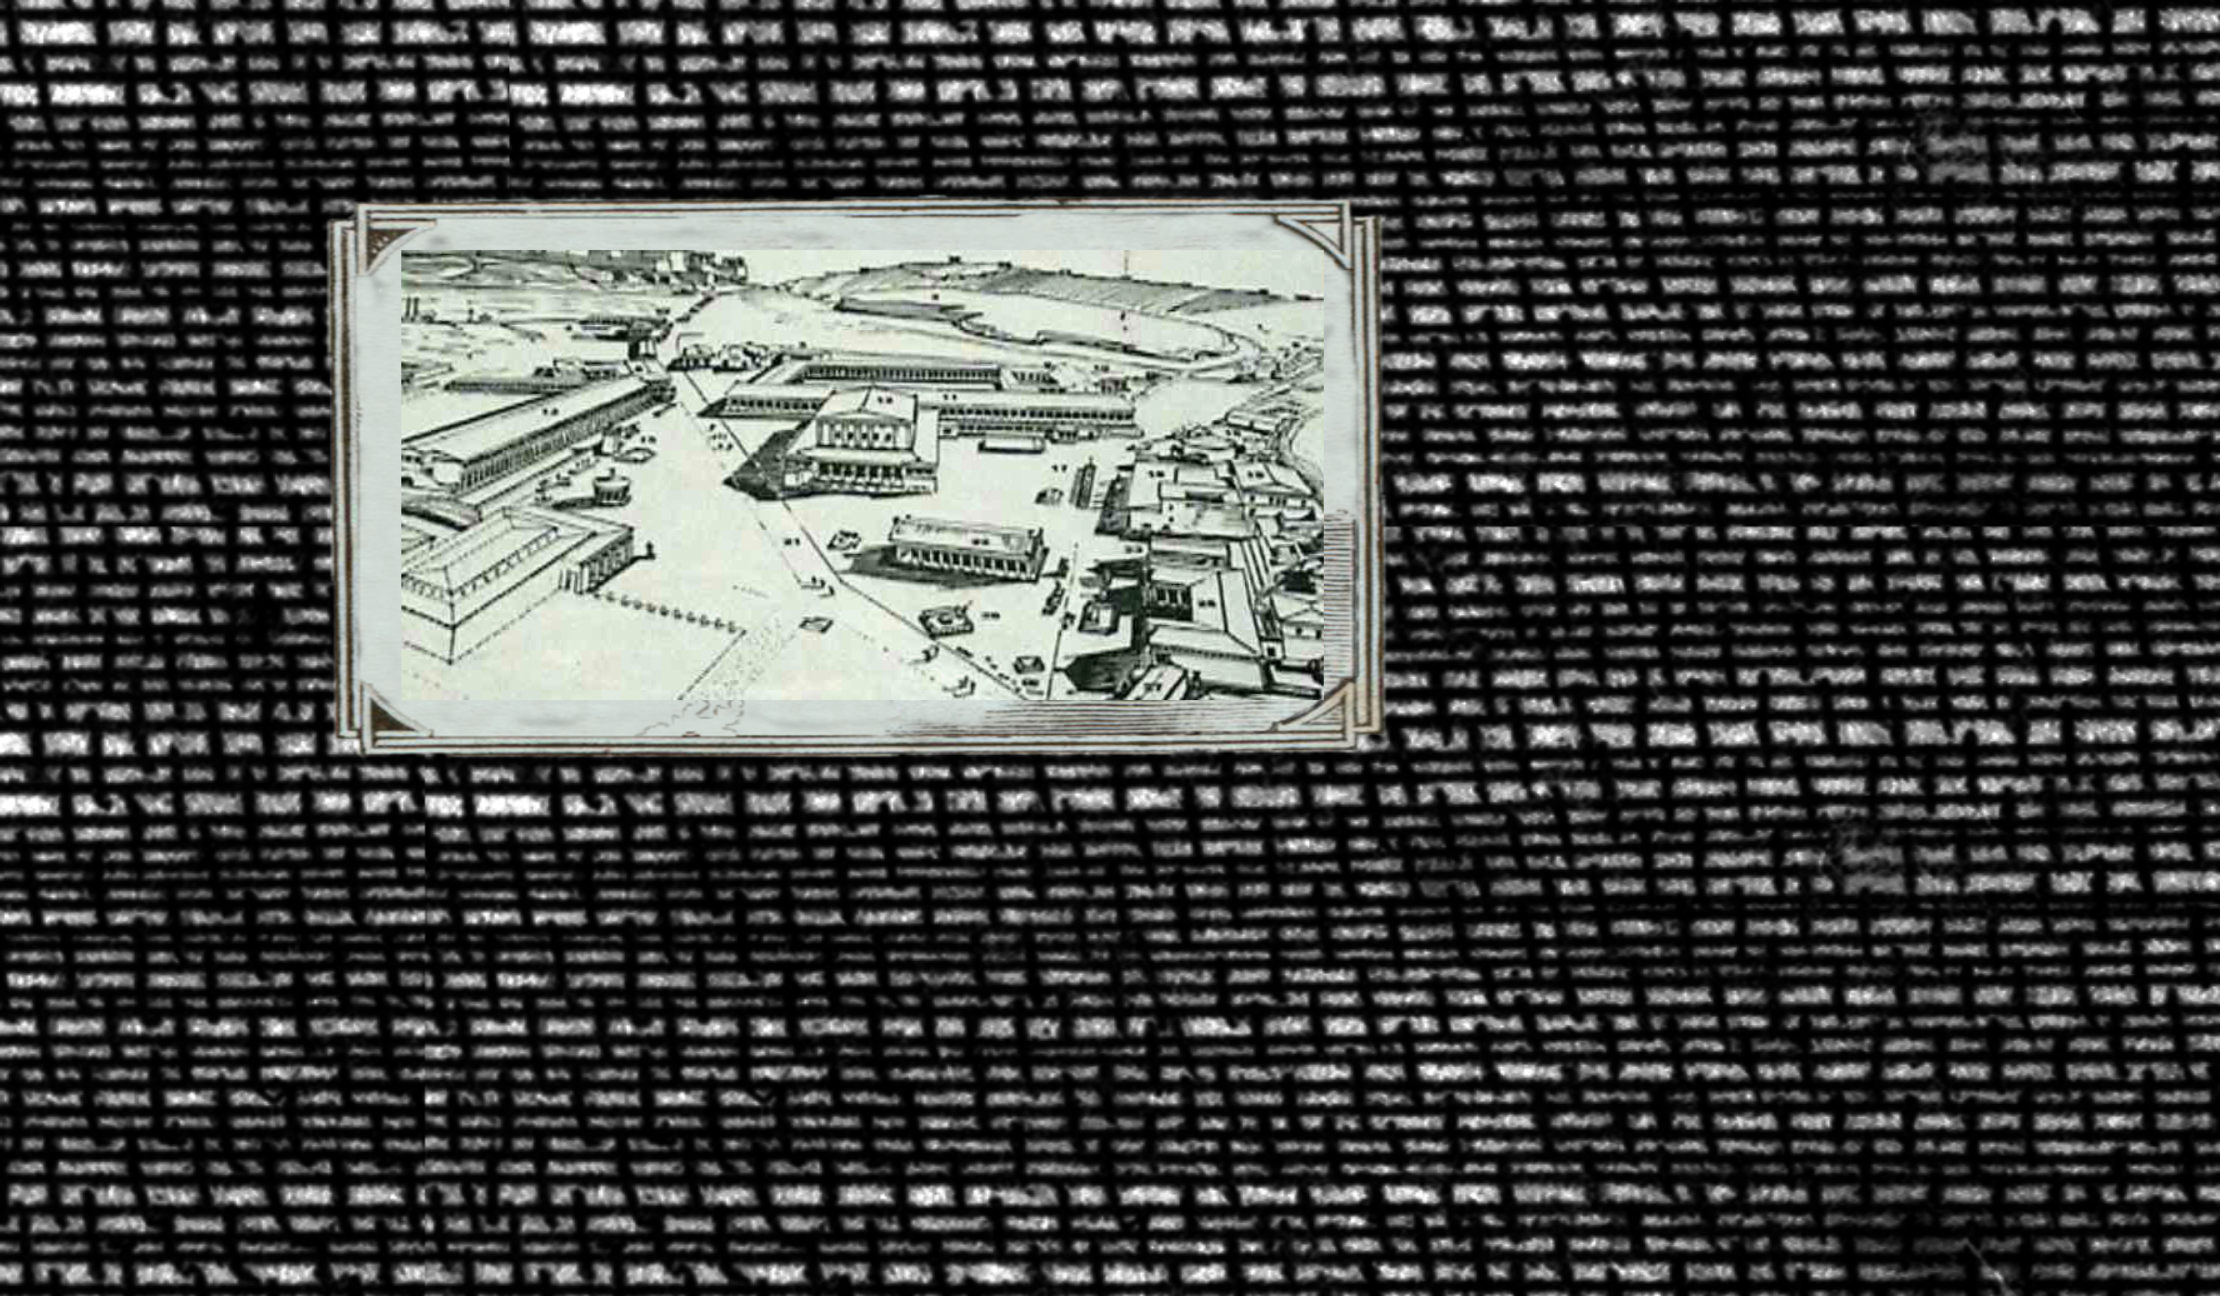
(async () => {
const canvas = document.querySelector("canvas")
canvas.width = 2220
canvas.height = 1296
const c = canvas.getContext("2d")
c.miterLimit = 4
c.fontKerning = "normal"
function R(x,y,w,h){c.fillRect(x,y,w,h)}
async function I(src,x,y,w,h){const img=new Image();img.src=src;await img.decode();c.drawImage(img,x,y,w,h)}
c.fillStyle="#fff"
R(0,0,2220,1296)
await I("1.png",0,0,2220,1296)
await I("2.png",326,181,1065,577)
})()
